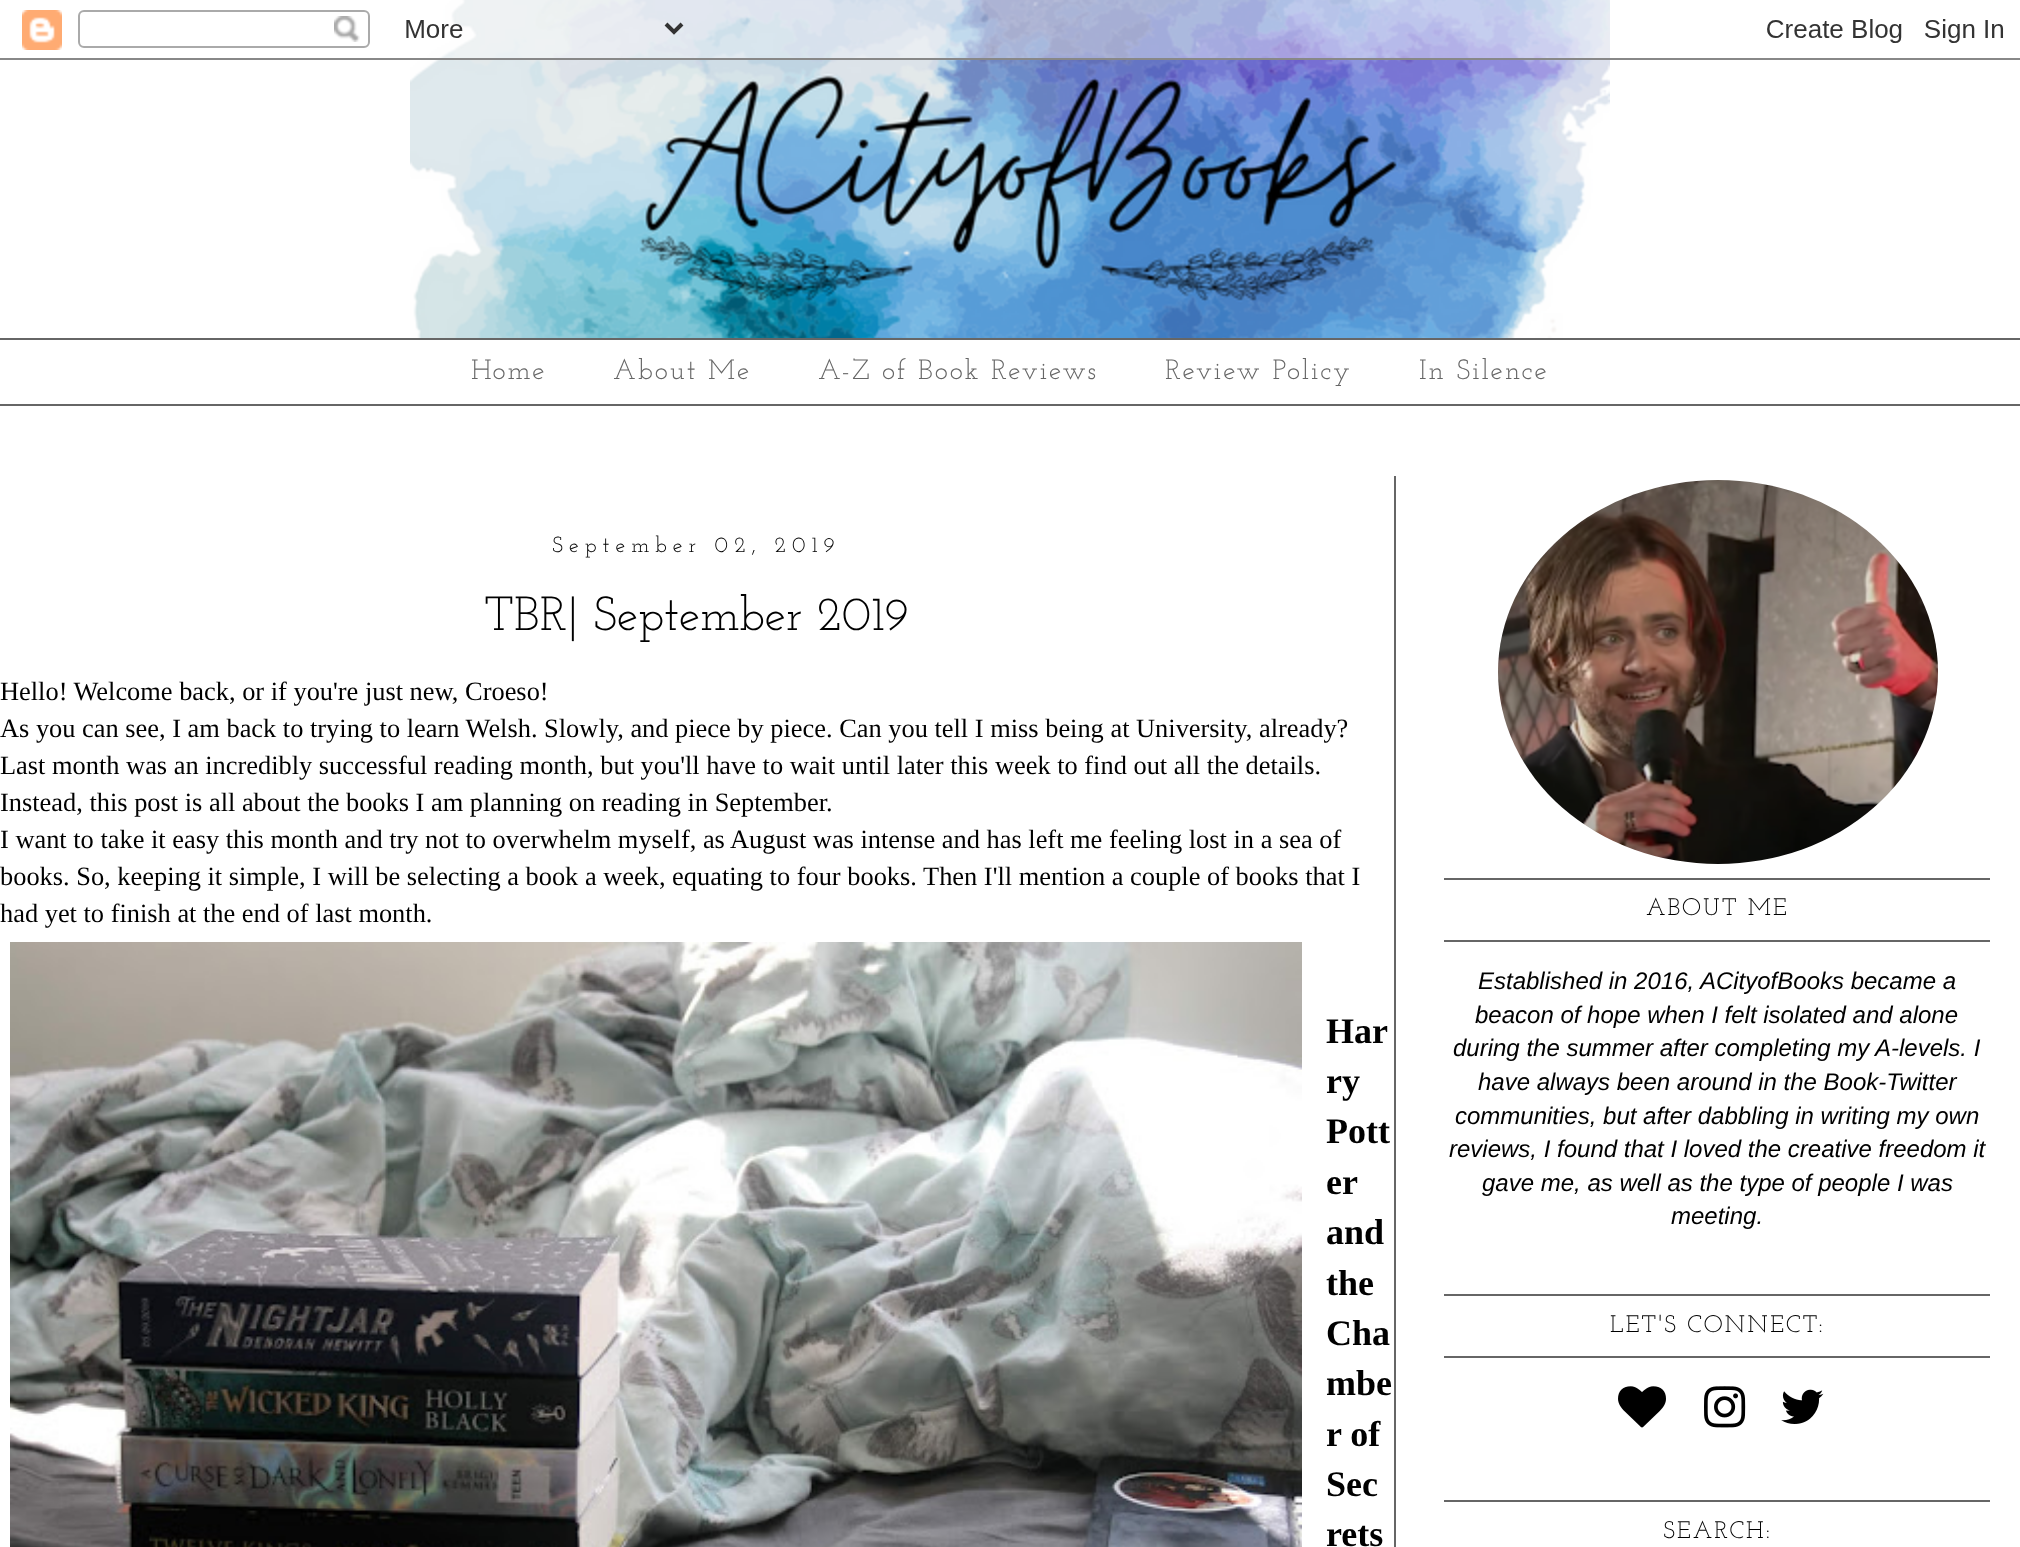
(async () => {
const canvas = document.querySelector("canvas")
canvas.width = 2020
canvas.height = 1547
const c = canvas.getContext("2d")
c.miterLimit = 4
c.fontKerning = "normal"
function T(s,x,y){c.fillText(s,x,y)}
function R(x,y,w,h){c.fillRect(x,y,w,h)}
async function I(src,x,y,w,h){const img=new Image();img.src=src;await img.decode();c.drawImage(img,x,y,w,h)}
c.fillStyle="#fff"
R(0,0,2020,1547)
await I("2.png",410,0,1200,338)
await I("1.png",0,0,2020,60)
c.fillStyle="#666"
R(0,338,2020,2)
R(0,404,2020,2)
c.letterSpacing="2px"
c.font="100 28px Josefin Slab"
T("Home",471,379)
T("About Me",613,379)
T("A-Z of Book Reviews",818,379)
T("Review Policy",1165,379)
T("In Silence",1419,379)
R(1394,476,2,1071)
c.letterSpacing="6px"
c.font="100 22px Josefin Slab"
c.fillStyle="#000"
T("September 02, 2019",552,552)
c.letterSpacing="0px"
c.font="100 48px Josefin Slab"
T("TBR| September 2019",484,630)
c.font="26.4px Liberation Serif"
T("Hello! Welcome back, or if you're just new, Croeso!",0,700)
T("As you can see, I am back to trying to learn Welsh. Slowly, and piece by piece. Can you tell I miss being at University, already?",0,737)
T("Last month was an incredibly successful reading month, but you'll have to wait until later this week to find out all the details.",0,774)
T("Instead, this post is all about the books I am planning on reading in September.",0,811)
T("I want to take it easy this month and try not to overwhelm myself, as August was intense and has left me feeling lost in a sea of",0,848)
T("books. So, keeping it simple, I will be selecting a book a week, equating to four books. Then I'll mention a couple of books that I",0,885)
T("had yet to finish at the end of last month.",0,922)
await I("3.png",10,942,1292,605)
c.font="bold 36px Liberation Serif"
T("Har",1326,1043)
T("ry",1326,1093)
T("Pott",1326,1143)
T("er",1326,1194)
T("and",1326,1244)
T("the",1326,1295)
T("Cha",1326,1345)
T("mbe",1326,1395)
T("r of",1326,1446)
T("Sec",1326,1496)
T("rets",1326,1546)
await I("4.png",1498,480,440,384)
c.fillStyle="#666"
R(1444,878,546,2)
R(1444,940,546,2)
c.letterSpacing="2px"
c.font="100 24px Josefin Slab"
c.fillStyle="#000"
T("ABOUT ME",1646,915)
c.letterSpacing="0px"
c.font="italic 24px Liberation Sans"
T("Established in 2016, ACityofBooks became a",1478,989)
T("beacon of hope when I felt isolated and alone",1475,1023)
T("during the summer after completing my A-levels. I",1453,1056)
T("have always been around in the Book-Twitter",1478,1090)
T("communities, but after dabbling in writing my own",1455,1124)
T("reviews, I found that I loved the creative freedom it",1449,1157)
T("gave me, as well as the type of people I was",1482,1191)
T("meeting.",1671,1224)
c.fillStyle="#666"
R(1444,1294,546,2)
R(1444,1356,546,2)
c.letterSpacing="2px"
c.font="100 24px Josefin Slab"
c.fillStyle="#000"
T("LET'S CONNECT:",1610,1332)
await I("5.png",1618,1386,48,42)
await I("6.png",1704,1386,42,42)
await I("7.png",1781,1389,43,35)
c.fillStyle="#666"
R(1444,1500,546,2)
c.fillStyle="#000"
T("SEARCH:",1663,1538)
})()
